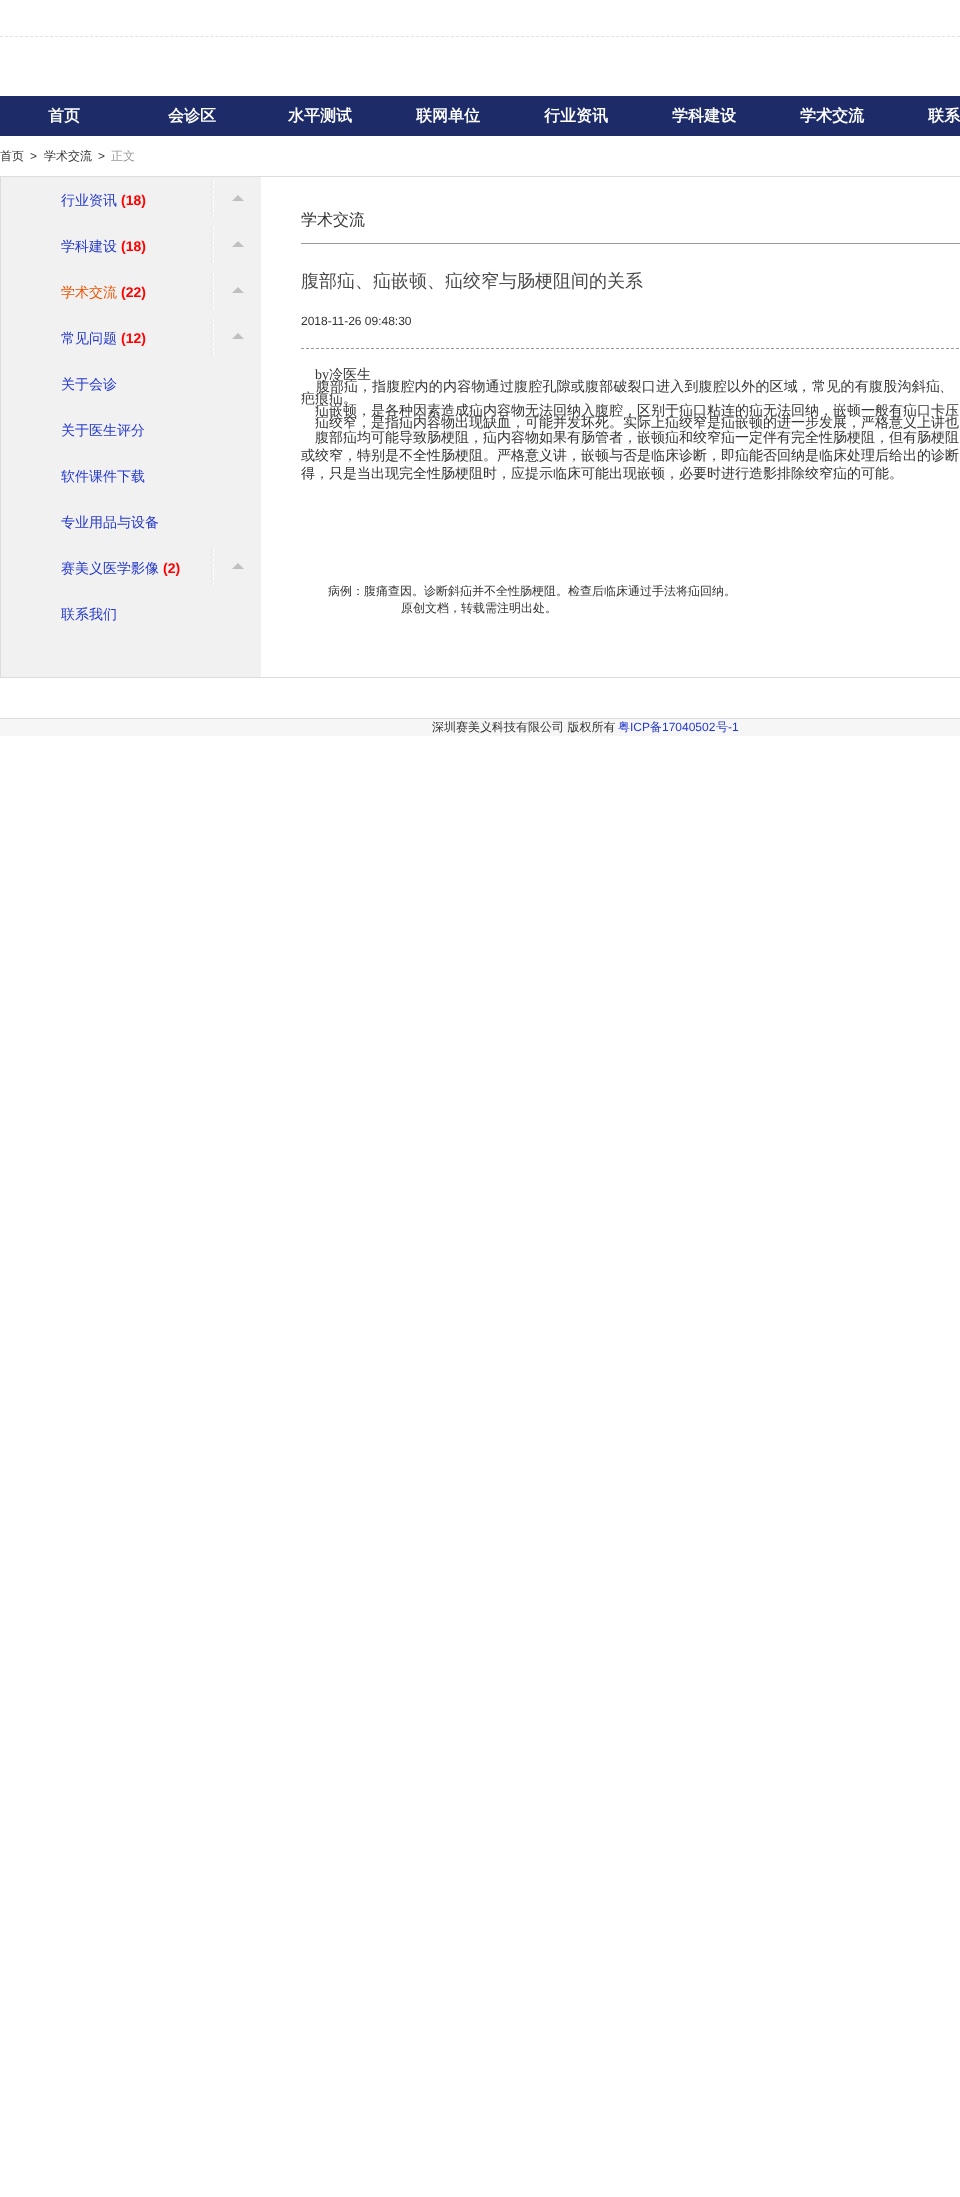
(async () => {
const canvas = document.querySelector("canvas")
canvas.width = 960
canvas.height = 2197
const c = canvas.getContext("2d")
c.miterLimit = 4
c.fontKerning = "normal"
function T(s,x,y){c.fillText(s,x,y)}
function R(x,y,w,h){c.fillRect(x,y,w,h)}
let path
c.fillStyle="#fff"
R(0,0,960,2197)
path = new Path2D("M0 36.5h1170")
c.strokeStyle="#e2e2e2"
c.setLineDash([3,2.01])
c.stroke(path)
c.fillStyle="#1d2c69"
R(0,96,960,40)
c.font="bold 16px WenQuanYi Zen Hei"
c.fillStyle="#fff"
T("首页",48,121)
T("会诊区",168,121)
T("水平测试",288,121)
T("联网单位",416,121)
T("行业资讯",544,121)
T("学科建设",672,121)
T("学术交流",800,121)
T("联系",928,121)
c.font="500 12px WenQuanYi Zen Hei"
c.fillStyle="#333"
T("首页",0,160)
c.font="12px Liberation Sans"
T(">",30,160)
c.font="500 12px WenQuanYi Zen Hei"
T("学术交流",44,160)
c.font="12px Liberation Sans"
T(">",98,160)
c.font="500 12px WenQuanYi Zen Hei"
c.fillStyle="#999"
T("正文",111,160)
c.fillStyle="#f1f1f1"
R(1,177,260,500)
c.strokeStyle="#ddd"
c.setLineDash([])
c.strokeRect(.5,176.5,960,501)
c.font="500 14px WenQuanYi Zen Hei"
c.fillStyle="#2438cd"
T("行业资讯",61,205)
c.font="bold 14px Liberation Sans"
c.fillStyle="#f00"
T("(18)",121,205)
path = new Path2D("M213.5 181v36")
c.strokeStyle="#fff"
c.setLineDash([3,1.71])
c.stroke(path)
path = new Path2D("M211.5 181v36")
c.strokeStyle="#e8e8e8"
c.stroke(path)
c.fillStyle="#c0c0c0"
path = new Path2D("M244 201h-12l6-6z")
c.fill(path)
c.font="500 14px WenQuanYi Zen Hei"
c.fillStyle="#2438cd"
T("学科建设",61,251)
c.font="bold 14px Liberation Sans"
c.fillStyle="#f00"
T("(18)",121,251)
path = new Path2D("M213.5 227v36")
c.strokeStyle="#fff"
c.stroke(path)
path = new Path2D("M211.5 227v36")
c.strokeStyle="#e8e8e8"
c.stroke(path)
c.fillStyle="#c0c0c0"
path = new Path2D("M244 247h-12l6-6z")
c.fill(path)
c.font="500 14px WenQuanYi Zen Hei"
c.fillStyle="#ea5404"
T("学术交流",61,297)
c.font="bold 14px Liberation Sans"
c.fillStyle="#f00"
T("(22)",121,297)
path = new Path2D("M213.5 273v36")
c.strokeStyle="#fff"
c.stroke(path)
path = new Path2D("M211.5 273v36")
c.strokeStyle="#e8e8e8"
c.stroke(path)
c.fillStyle="#c0c0c0"
path = new Path2D("M244 293h-12l6-6z")
c.fill(path)
c.font="500 14px WenQuanYi Zen Hei"
c.fillStyle="#2438cd"
T("常见问题",61,343)
c.font="bold 14px Liberation Sans"
c.fillStyle="#f00"
T("(12)",121,343)
path = new Path2D("M213.5 319v36")
c.strokeStyle="#fff"
c.stroke(path)
path = new Path2D("M211.5 319v36")
c.strokeStyle="#e8e8e8"
c.stroke(path)
c.fillStyle="#c0c0c0"
path = new Path2D("M244 339h-12l6-6z")
c.fill(path)
c.font="500 14px WenQuanYi Zen Hei"
c.fillStyle="#2438cd"
T("关于会诊",61,389)
T("关于医生评分",61,435)
T("软件课件下载",61,481)
T("专业用品与设备",61,527)
T("赛美义医学影像",61,573)
c.font="bold 14px Liberation Sans"
c.fillStyle="#f00"
T("(2)",163,573)
path = new Path2D("M213.5 549v36")
c.strokeStyle="#fff"
c.stroke(path)
path = new Path2D("M211.5 549v36")
c.strokeStyle="#e8e8e8"
c.stroke(path)
c.fillStyle="#c0c0c0"
path = new Path2D("M244 569h-12l6-6z")
c.fill(path)
c.font="500 14px WenQuanYi Zen Hei"
c.fillStyle="#2438cd"
T("联系我们",61,619)
c.fillStyle="#999"
R(301,243,659,1)
c.font="500 16px WenQuanYi Zen Hei"
c.fillStyle="#333"
T("学术交流",301,225)
path = new Path2D("M301 348.5h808")
c.strokeStyle="#999"
c.setLineDash([3,2])
c.stroke(path)
c.font="500 18px WenQuanYi Zen Hei"
c.fillStyle="#484848"
T("腹部疝、疝嵌顿、疝绞窄与肠梗阻间的关系",301,287)
c.font="12px Liberation Sans"
c.fillStyle="#333"
T("2018-11-26 09:48:30",301,325)
c.font="14px Liberation Serif"
T("by",315,379)
c.font="500 14px WenQuanYi Zen Hei"
T("冷医生",329,379)
T("腹部疝，",316,391)
c.letterSpacing="0.2px"
T("指腹腔内的内容物通过腹腔孔隙或腹部破裂口进入到腹腔以外的区域",372,391)
c.letterSpacing="0px"
T("，",797,391)
c.letterSpacing="0.25px"
T("常见的有腹股沟斜疝",812,391)
c.letterSpacing="0px"
T("、",939,391)
T("疤痕疝。",301,403)
T("疝嵌顿，是各种因素造成疝内容物无法回纳入腹腔，区别于疝口粘连的疝无法回纳，嵌顿一般有疝口卡压",315,415)
T("疝绞窄，是指疝内容物出现缺血，可能并发坏死。实际上疝绞窄是疝嵌顿的进一步发展，严格意义上讲也",315,427)
T("腹部疝均可能导致肠梗阻，疝内容物如果有肠管者，嵌顿疝和绞窄疝一定伴有完全性肠梗阻，但有肠梗阻",315,442)
T("或绞窄，特别是不全性肠梗阻。严格意义讲，嵌顿与否是临床诊断，即疝能否回纳是临床处理后给出的诊断",301,460)
T("得，只是当出现完全性肠梗阻时，应提示临床可能出现嵌顿，必要时进行造影排除绞窄疝的可能。",301,478)
c.font="500 12px WenQuanYi Zen Hei"
T("病例：腹痛查因。诊断斜疝并不全性肠梗阻。检查后临床通过手法将疝回纳。",328,595)
T("原创文档，转载需注明出处。",401,612)
c.fillStyle="#e1dddd"
R(0,718,960,1)
c.fillStyle="#f6f6f6"
R(0,719,960,17)
c.fillStyle="#333"
T("深圳赛美义科技有限公司 版权所有",432,731)
c.fillStyle="#2438cd"
T("粤",618,731)
c.font="12px Liberation Sans"
T("ICP",630,731)
c.font="500 12px WenQuanYi Zen Hei"
T("备",650,731)
c.font="12px Liberation Sans"
T("17040502",662,731)
c.font="500 12px WenQuanYi Zen Hei"
T("号",716,731)
c.font="12px Liberation Sans"
T("-1",728,731)
})()
